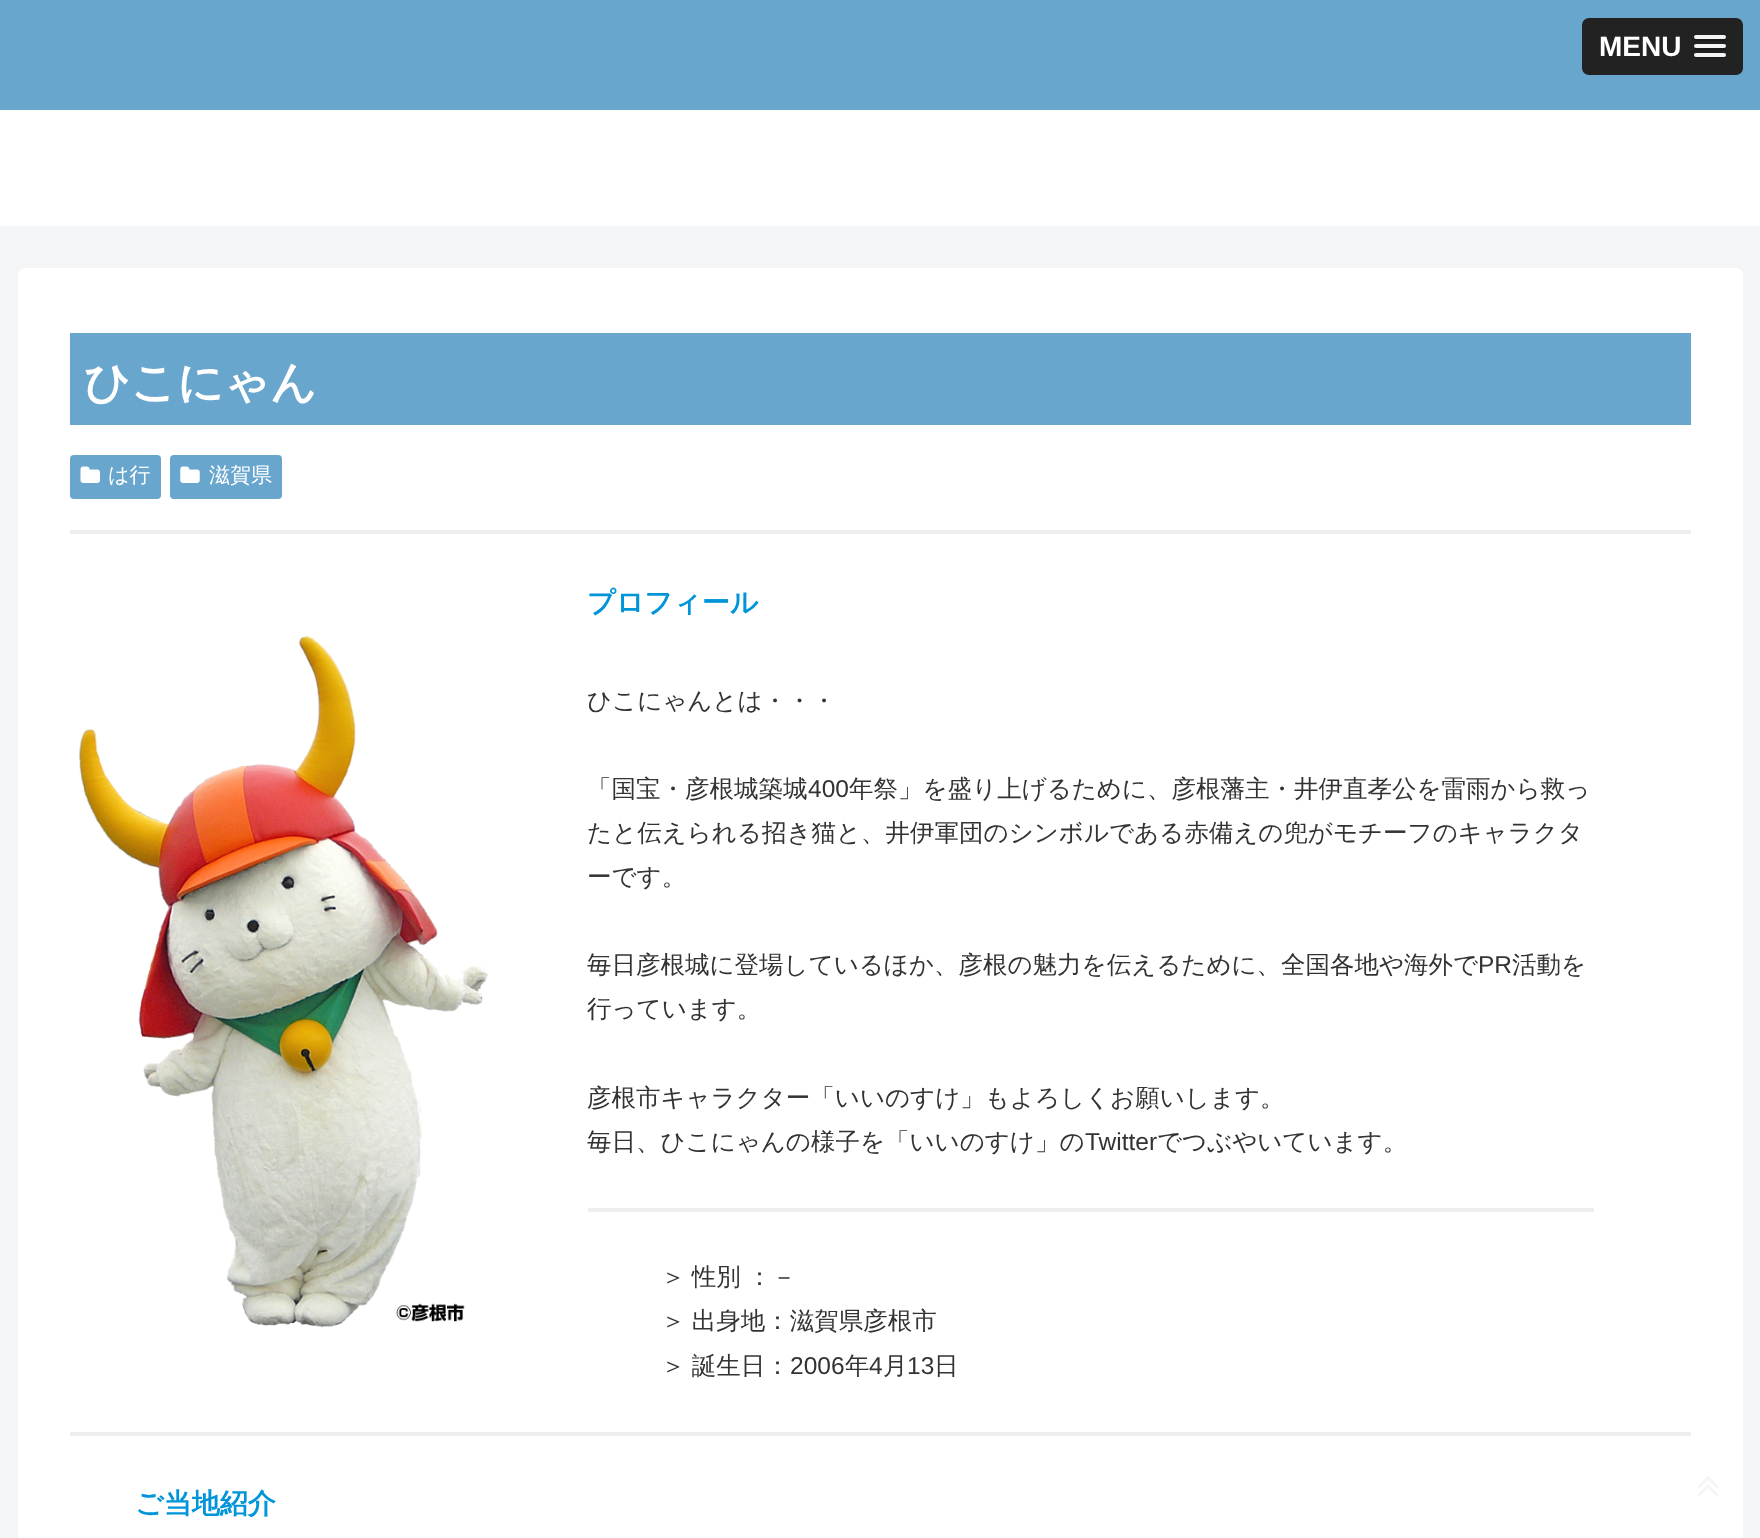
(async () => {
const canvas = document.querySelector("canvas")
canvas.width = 1760
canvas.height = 1538
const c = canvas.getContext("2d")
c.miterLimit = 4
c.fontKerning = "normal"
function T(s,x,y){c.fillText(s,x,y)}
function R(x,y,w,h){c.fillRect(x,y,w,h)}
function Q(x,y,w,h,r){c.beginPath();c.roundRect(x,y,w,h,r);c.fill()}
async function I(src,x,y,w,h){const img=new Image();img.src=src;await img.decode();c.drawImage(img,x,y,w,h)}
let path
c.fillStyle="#f4f5f7"
R(0,0,1760,1538)
c.fillStyle="#69a6cd"
R(0,0,1760,110)
c.fillStyle="#222"
Q(1582,18,161,57,7)
c.font="bold 28px Liberation Sans"
c.fillStyle="#fff"
T("MENU",1599,56)
c.fillStyle="#1a1a1a"
path = new Path2D("M1694.5 38l-.5 1.5c.5 2.5 5.5 1.5 6.5 1.5h19c1.5 0 6.5 1 6.5-2l-.5-1.5c-.5 .5-1 1-1.5 1h-28.5z")
c.fill(path)
c.fillStyle="#f5f5f5"
Q(1694,35,32,4,2)
c.fillStyle="#1a1a1a"
path = new Path2D("M1694.5 46.5c-.5 .5-.5 1.5-.5 2c.5 2.5 5.5 1.5 6.5 1.5h23.5c2 0 2.5-2.5 1-3.5l-1 .5h-28.5z")
c.fill(path)
c.fillStyle="#f5f5f5"
Q(1694,44,32,4,2)
c.fillStyle="#1a1a1a"
path = new Path2D("M1694 55c-1.5 4 6 3 6.5 3h19c1 0 6 1 6.5-1.5c0-.5 0-1.5-.5-2c0 1-1 1.5-1.5 1.5h-28c-1 0-1.5-.5-2-1z")
c.fill(path)
c.fillStyle="#f5f5f5"
Q(1694,53,32,4,2)
c.fillStyle="#fff"
R(0,110,1760,116)
Q(18,268,1725,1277,7)
c.fillStyle="#69a6cd"
R(70,333,1621,92)
c.font="bold 45.5px WenQuanYi Zen Hei"
c.fillStyle="#fff"
T("ひこにゃん",84,398)
c.fillStyle="#69a6cd"
Q(70,455,91,44,4)
await I("1.png",80,466,20,17)
c.font="500 21px WenQuanYi Zen Hei"
c.fillStyle="#fff"
T("は行",108,482)
c.fillStyle="#69a6cd"
Q(170,455,112,44,4)
await I("2.png",180,466,20,17)
c.fillStyle="#fff"
T("滋賀県",209,482)
c.fillStyle="#eee"
R(70,530,1621,4)
await I("3.png",78,634,410,694)
c.font="bold 28px WenQuanYi Zen Hei"
c.fillStyle="#0095d9"
T("プロフィール",587,612)
c.font="500 24.5px WenQuanYi Zen Hei"
c.fillStyle="#333"
T("ひこにゃんとは・・・",587,709)
T("「国宝・彦根城築城",587,797)
c.font="24.5px Liberation Sans"
T("400",808,797)
c.font="500 24.5px WenQuanYi Zen Hei"
T("年祭」を盛り上げるために、彦根藩主・井伊直孝公を雷雨から救っ",849,797)
T("たと伝えられる招き猫と、井伊軍団のシンボルである赤備えの兜がモチーフのキャラクタ",587,841)
T("ーです。",587,885)
T("毎日彦根城に登場しているほか、彦根の魅力を伝えるために、全国各地や海外で",587,973)
c.font="24.5px Liberation Sans"
T("PR",1478,973)
c.font="500 24.5px WenQuanYi Zen Hei"
T("活動を",1512,973)
T("行っています。",587,1017)
T("彦根市キャラクター「いいのすけ」もよろしくお願いします。",587,1106)
T("毎日、ひこにゃんの様子を「いいのすけ」の",587,1150)
c.font="24.5px Liberation Sans"
T("Twitter",1085,1150)
c.font="500 24.5px WenQuanYi Zen Hei"
T("でつぶやいています。",1157,1150)
c.fillStyle="#eee"
R(588,1208,1006,4)
c.wordSpacing="-1px"
c.fillStyle="#333"
T("＞ 性別 ：－",661,1285)
T("＞ 出身地：滋賀県彦根市",661,1329)
T("＞ 誕生日：",661,1374)
c.wordSpacing="0px"
c.font="24.5px Liberation Sans"
T("2006",790,1374)
c.font="500 24.5px WenQuanYi Zen Hei"
T("年",845,1374)
c.font="24.5px Liberation Sans"
T("4",869,1374)
c.font="500 24.5px WenQuanYi Zen Hei"
T("月",883,1374)
c.font="24.5px Liberation Sans"
T("13",907,1374)
c.font="500 24.5px WenQuanYi Zen Hei"
T("日",934,1374)
c.fillStyle="#eee"
R(70,1432,1621,4)
c.font="bold 28px WenQuanYi Zen Hei"
c.fillStyle="#0095d9"
T("ご当地紹介",135,1513)
await I("4.png",1698,1476,21,21)
})()
